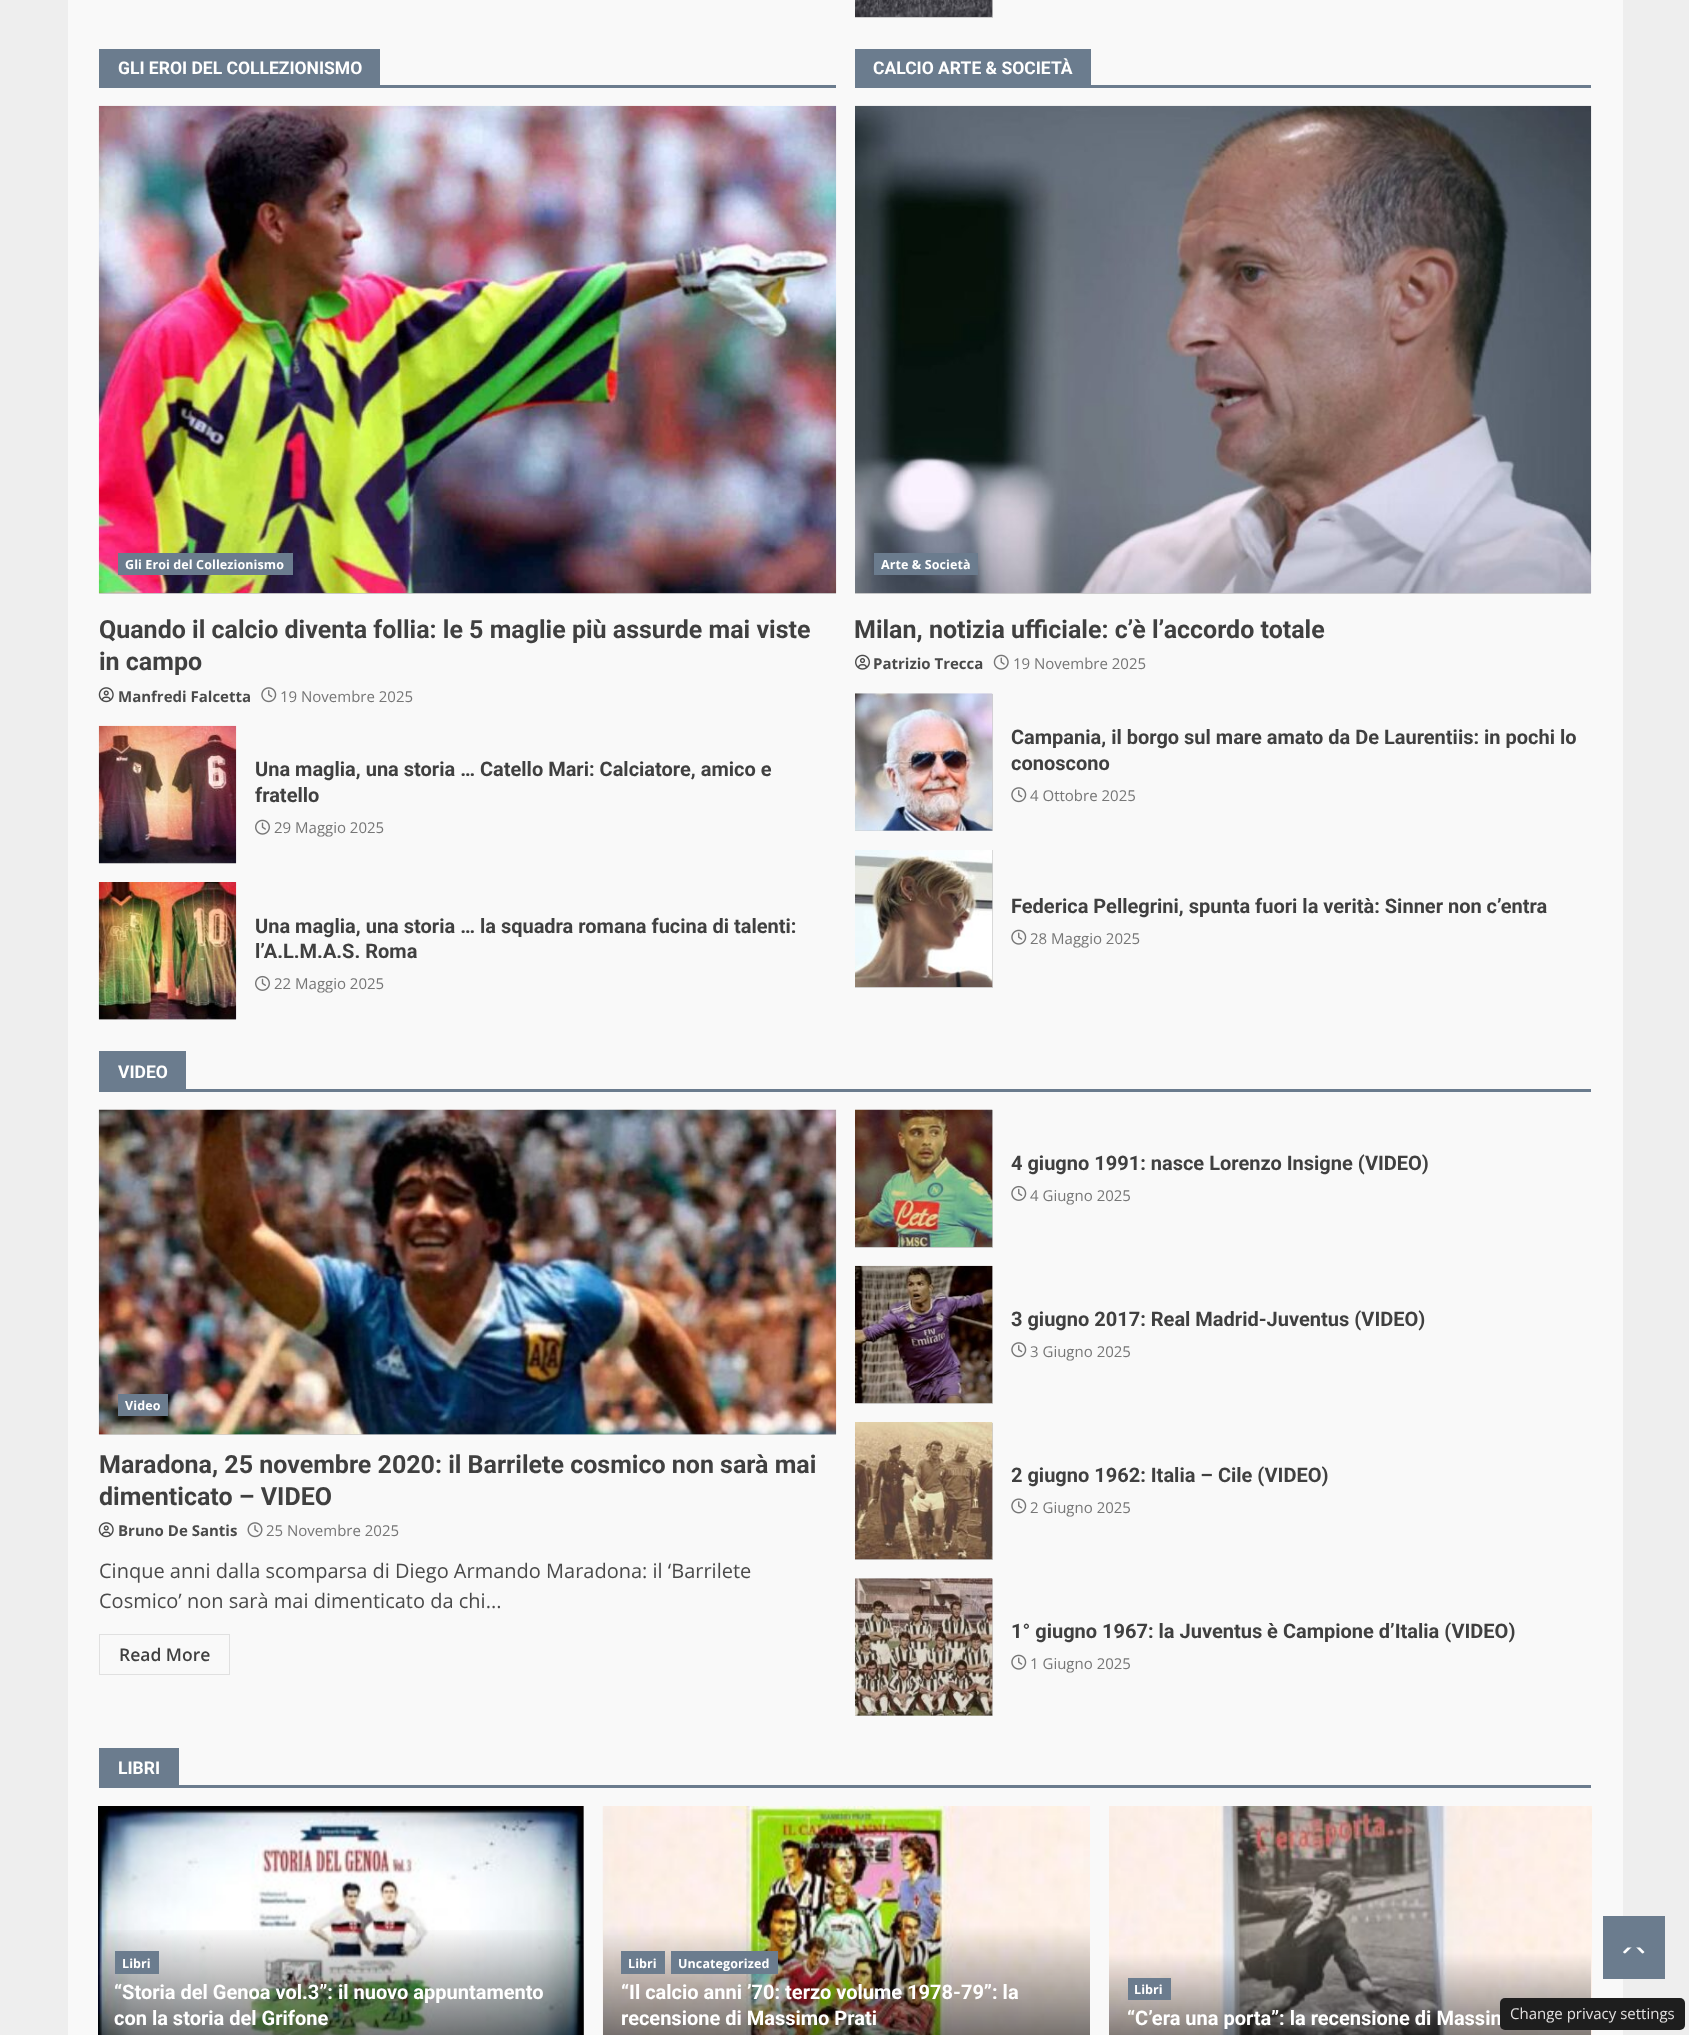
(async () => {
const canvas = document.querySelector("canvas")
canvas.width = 1689
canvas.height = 2035
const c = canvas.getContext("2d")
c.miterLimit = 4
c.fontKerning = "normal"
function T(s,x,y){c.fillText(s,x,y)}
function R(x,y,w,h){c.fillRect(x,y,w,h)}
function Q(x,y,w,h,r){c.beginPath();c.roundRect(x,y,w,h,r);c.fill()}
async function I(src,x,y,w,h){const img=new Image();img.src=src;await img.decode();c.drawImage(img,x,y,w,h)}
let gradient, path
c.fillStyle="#eee"
R(0,0,1689,2035)
c.fillStyle="#f9f9f9"
R(68,0,1555,2035)
c.fillStyle="#ccc"
R(855,0,138,18)
await I("1.png",855,0,138,17)
c.fillStyle="#6b7c8e"
R(99,85,737,3)
R(99,49,281,36)
c.font="bold 17.5px Roboto"
c.fillStyle="#fff"
T("GLI EROI DEL COLLEZIONISMO",118,74)
c.fillStyle="#ccc"
R(99,593,737,1)
await I("2.png",98,105,739,489)
c.fillStyle="#6b7c8e"
R(118,553,175,22)
c.letterSpacing="0.1px"
c.font="bold 12.5px Open Sans"
c.fillStyle="#fff"
T("Gli Eroi del Collezionismo",125,569)
c.letterSpacing="0px"
c.font="bold 25px Roboto"
c.fillStyle="#404040"
T("Quando il calcio diventa follia: le 5 maglie più assurde mai viste",99,638)
T("in campo",99,670)
await I("3.png",98,687,16,16)
c.font="bold 15px Open Sans"
c.fillStyle="#4a4a4a"
T("Manfredi Falcetta",118,702)
await I("4.png",261,687,16,16)
c.font="15px Open Sans"
c.fillStyle="#767676"
T("19 Novembre 2025",280,702)
c.fillStyle="#ccc"
R(99,863,137,1)
await I("5.png",98,725,139,139)
c.font="bold 20px Roboto"
c.fillStyle="#404040"
T("Una maglia, una storia … Catello Mari: Calciatore, amico e",255,776)
T("fratello",255,802)
await I("6.png",255,819,15,16)
c.font="15px Open Sans"
c.fillStyle="#767676"
T("29 Maggio 2025",274,833)
c.fillStyle="#ccc"
R(99,1019,137,1)
await I("7.png",98,882,139,138)
c.font="bold 20px Roboto"
c.fillStyle="#404040"
T("Una maglia, una storia … la squadra romana fucina di talenti:",255,933)
T("l’A.L.M.A.S. Roma",255,958)
await I("8.png",255,975,15,16)
c.font="15px Open Sans"
c.fillStyle="#767676"
T("22 Maggio 2025",274,989)
c.fillStyle="#6b7c8e"
R(855,85,736,3)
R(855,49,236,36)
c.font="bold 17.5px Roboto"
c.fillStyle="#fff"
T("CALCIO ARTE & SOCIETÀ",873,74)
c.fillStyle="#ccc"
R(855,593,736,1)
await I("9.png",855,105,737,489)
c.fillStyle="#6b7c8e"
R(874,553,104,22)
c.letterSpacing="0.1px"
c.font="bold 12.5px Open Sans"
c.fillStyle="#fff"
T("Arte & Società",881,569)
c.letterSpacing="0px"
c.font="bold 25px Roboto"
c.fillStyle="#404040"
T("Milan, notizia ufficiale: c’è l’accordo totale",854,638)
await I("10.png",855,654,15,16)
c.font="bold 15px Open Sans"
c.fillStyle="#4a4a4a"
T("Patrizio Trecca",873,669)
await I("11.png",993,654,16,16)
c.font="15px Open Sans"
c.fillStyle="#767676"
T("19 Novembre 2025",1013,669)
c.fillStyle="#ccc"
R(855,694,138,137)
await I("12.png",855,693,138,138)
c.font="bold 20px Roboto"
c.fillStyle="#404040"
T("Campania, il borgo sul mare amato da De Laurentiis: in pochi lo",1011,744)
T("conoscono",1011,770)
await I("4.png",1011,787,16,16)
c.font="15px Open Sans"
c.fillStyle="#767676"
T("4 Ottobre 2025",1030,801)
c.fillStyle="#ccc"
R(855,850,138,138)
await I("13.png",855,850,138,137)
c.font="bold 20px Roboto"
c.fillStyle="#404040"
T("Federica Pellegrini, spunta fuori la verità: Sinner non c’entra",1011,913)
await I("14.png",1011,929,16,16)
c.font="15px Open Sans"
c.fillStyle="#767676"
T("28 Maggio 2025",1030,944)
c.fillStyle="#6b7c8e"
R(99,1089,1492,3)
R(99,1051,87,38)
c.font="bold 17.5px Roboto"
c.fillStyle="#fff"
T("VIDEO",118,1078)
c.fillStyle="#ccc"
R(855,1110,138,138)
await I("15.png",855,1109,138,138)
c.font="bold 20px Roboto"
c.fillStyle="#404040"
T("4 giugno 1991: nasce Lorenzo Insigne (VIDEO)",1011,1170)
await I("16.png",1011,1185,16,16)
c.font="15px Open Sans"
c.fillStyle="#767676"
T("4 Giugno 2025",1030,1201)
c.fillStyle="#ccc"
R(855,1266,138,138)
await I("17.png",855,1265,138,139)
c.font="bold 20px Roboto"
c.fillStyle="#404040"
T("3 giugno 2017: Real Madrid-Juventus (VIDEO)",1011,1326)
await I("4.png",1011,1342,16,16)
c.font="15px Open Sans"
c.fillStyle="#767676"
T("3 Giugno 2025",1030,1357)
c.fillStyle="#ccc"
R(99,1434,737,1)
await I("18.png",98,1109,739,326)
c.fillStyle="#6b7c8e"
R(118,1394,50,22)
c.letterSpacing="0.1px"
c.font="bold 12.5px Open Sans"
c.fillStyle="#fff"
T("Video",125,1410)
c.letterSpacing="0px"
c.font="bold 25px Roboto"
c.fillStyle="#404040"
T("Maradona, 25 novembre 2020: il Barrilete cosmico non sarà mai",99,1473)
T("dimenticato – VIDEO",99,1505)
await I("3.png",98,1522,16,16)
c.font="bold 15px Open Sans"
c.fillStyle="#4a4a4a"
T("Bruno De Santis",118,1536)
await I("19.png",247,1522,16,16)
c.font="15px Open Sans"
c.fillStyle="#767676"
T("25 Novembre 2025",266,1536)
c.font="20px Open Sans"
c.fillStyle="#4a4a4a"
T("Cinque anni dalla scomparsa di Diego Armando Maradona: il ‘Barrilete",99,1578)
T("Cosmico’ non sarà mai dimenticato da chi...",99,1608)
c.strokeStyle="#e0e0e0"
c.strokeRect(99.5,1634.5,130,40)
c.font="600 17.5px Open Sans"
c.fillStyle="#404040"
T("Read More",119,1661)
c.fillStyle="#ccc"
R(855,1423,138,137)
await I("20.png",855,1422,138,138)
c.font="bold 20px Roboto"
c.fillStyle="#404040"
T("2 giugno 1962: Italia – Cile (VIDEO)",1011,1482)
await I("21.png",1011,1498,16,16)
c.font="15px Open Sans"
c.fillStyle="#767676"
T("2 Giugno 2025",1030,1513)
c.fillStyle="#ccc"
R(855,1579,138,137)
await I("22.png",855,1578,138,138)
c.font="bold 20px Roboto"
c.fillStyle="#404040"
T("1° giugno 1967: la Juventus è Campione d’Italia (VIDEO)",1011,1638)
await I("14.png",1011,1654,16,16)
c.font="15px Open Sans"
c.fillStyle="#767676"
T("1 Giugno 2025",1030,1669)
c.fillStyle="#6b7c8e"
R(99,1785,1492,3)
R(99,1748,80,37)
c.font="bold 17.5px Roboto"
c.fillStyle="#fff"
T("LIBRI",118,1774)
c.fillStyle="#ccc"
R(583,1806,1,229)
await I("23.png",98,1806,486,229)
gradient = c.createLinearGradient(340,1926,340,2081)
gradient.addColorStop(0,"#00000000")
gradient.addColorStop(1,"#000000bf")
c.fillStyle = gradient
R(99,1930,485,105)
c.fillStyle="#6b7c8e"
R(115,1951,44,23)
c.letterSpacing="0.1px"
c.font="bold 12.5px Open Sans"
c.fillStyle="#fff"
T("Libri",122,1968)
c.letterSpacing="0px"
c.font="bold 20px Roboto"
T("“Storia del Genoa vol.3”: il nuovo appuntamento",114,1999)
T("con la storia del Grifone",114,2025)
await I("24.png",602,1806,488,229)
c.fillStyle="#6b7c8e"
R(621,1951,44,23)
c.letterSpacing="0.1px"
c.font="bold 12.5px Open Sans"
c.fillStyle="#fff"
T("Libri",628,1968)
c.fillStyle="#6b7c8e"
R(671,1951,107,23)
c.fillStyle="#fff"
T("Uncategorized",678,1968)
c.letterSpacing="0px"
c.font="bold 20px Roboto"
T("“Il calcio anni ’70: terzo volume 1978-79”: la",621,1999)
T("recensione di Massimo Prati",621,2025)
await I("25.png",1109,1806,483,229)
c.fillStyle="#6b7c8e"
R(1128,1978,43,22)
c.letterSpacing="0.1px"
c.font="bold 12.5px Open Sans"
c.fillStyle="#fff"
T("Libri",1134,1994)
c.letterSpacing="0px"
c.font="bold 20px Roboto"
T("“C’era una porta”: la recensione di Massim",1127,2025)
c.fillStyle="#6b7c8e"
R(1603,1916,62,63)
c.fillStyle="#fff"
path = new Path2D("M1626 1954c-1.5-.5-2.5-1-3-2l4.5-4.5h12.5l4.5 4.5c-1 1-1.5 1.5-3 2z")
c.fill(path)
c.fillStyle="#6b7c8e"
path = new Path2D("M1646 1957.5h-25l13-12.5z")
c.fill(path)
c.fillStyle="#1e1e1e"
Q(1500,1998,185,32,5)
c.font="15px Open Sans"
c.fillStyle="#e3e1e1"
T("Change privacy settings",1510,2019)
})()
